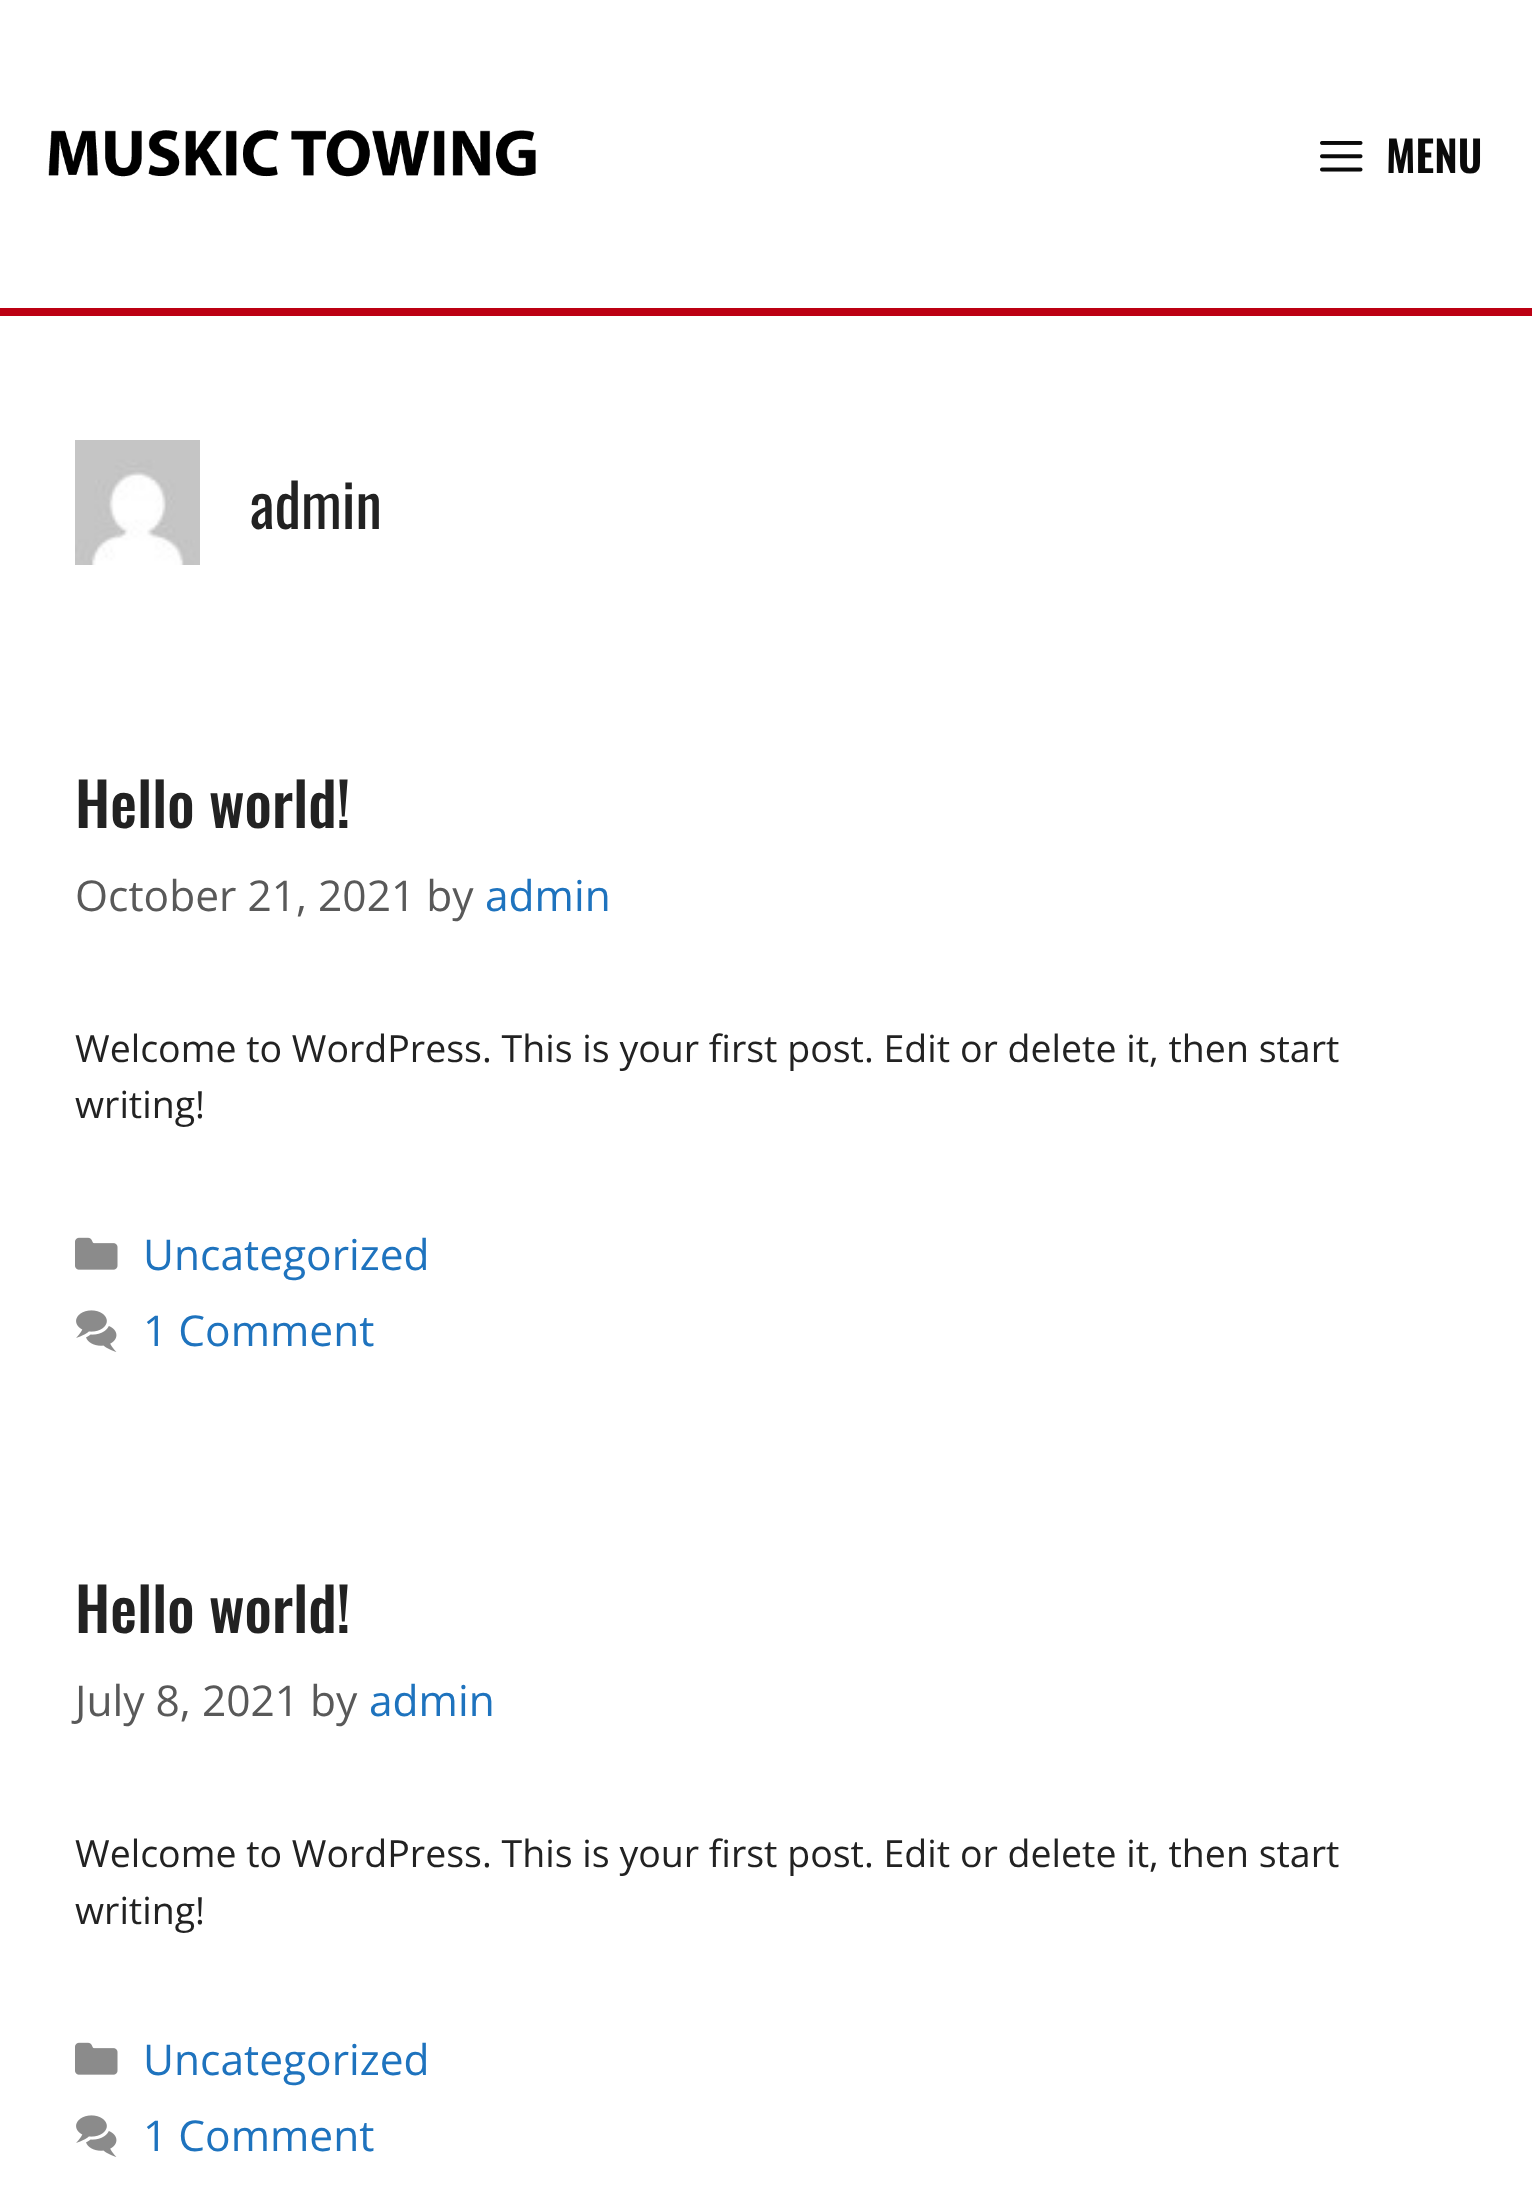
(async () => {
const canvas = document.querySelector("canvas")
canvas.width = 1532
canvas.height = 2192
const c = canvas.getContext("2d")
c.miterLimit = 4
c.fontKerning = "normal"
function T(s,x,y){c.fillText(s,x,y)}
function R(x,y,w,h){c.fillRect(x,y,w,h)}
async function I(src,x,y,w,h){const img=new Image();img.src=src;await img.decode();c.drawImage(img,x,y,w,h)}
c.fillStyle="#fff"
R(0,0,1532,2192)
c.fillStyle="#bc0013"
R(0,308,1532,8)
await I("1.png",48,130,488,47)
await I("2.png",1320,141,43,31)
c.font="600 42.5px Oswald"
c.fillStyle="#0a0a0a"
T("MENU",1386,173)
await I("3.png",75,440,125,125)
c.font="60px Oswald"
c.fillStyle="#222"
T("admin",250,529)
c.font="500 60px Oswald"
T("Hello world!",75,828)
c.font="42.5px Open Sans"
c.fillStyle="#595959"
T("October 21, 2021 by",75,911)
c.fillStyle="#1e73be"
T("admin",485,911)
c.font="37.5px Open Sans"
c.fillStyle="#222"
T("Welcome to WordPress. This is your first post. Edit or delete it, then start",75,1062)
T("writing!",75,1118)
await I("4.png",75,1237,43,33)
c.font="42.5px Open Sans"
c.fillStyle="#1e73be"
T("Uncategorized",143,1270)
await I("5.png",76,1310,41,42)
T("1 Comment",143,1346)
c.font="500 60px Oswald"
c.fillStyle="#222"
T("Hello world!",75,1633)
c.font="42.5px Open Sans"
c.fillStyle="#595959"
T("July 8, 2021 by",75,1716)
c.fillStyle="#1e73be"
T("admin",369,1716)
c.font="37.5px Open Sans"
c.fillStyle="#222"
T("Welcome to WordPress. This is your first post. Edit or delete it, then start",75,1867)
T("writing!",75,1924)
await I("4.png",75,2042,43,33)
c.font="42.5px Open Sans"
c.fillStyle="#1e73be"
T("Uncategorized",143,2075)
await I("5.png",76,2115,41,42)
T("1 Comment",143,2151)
})()
